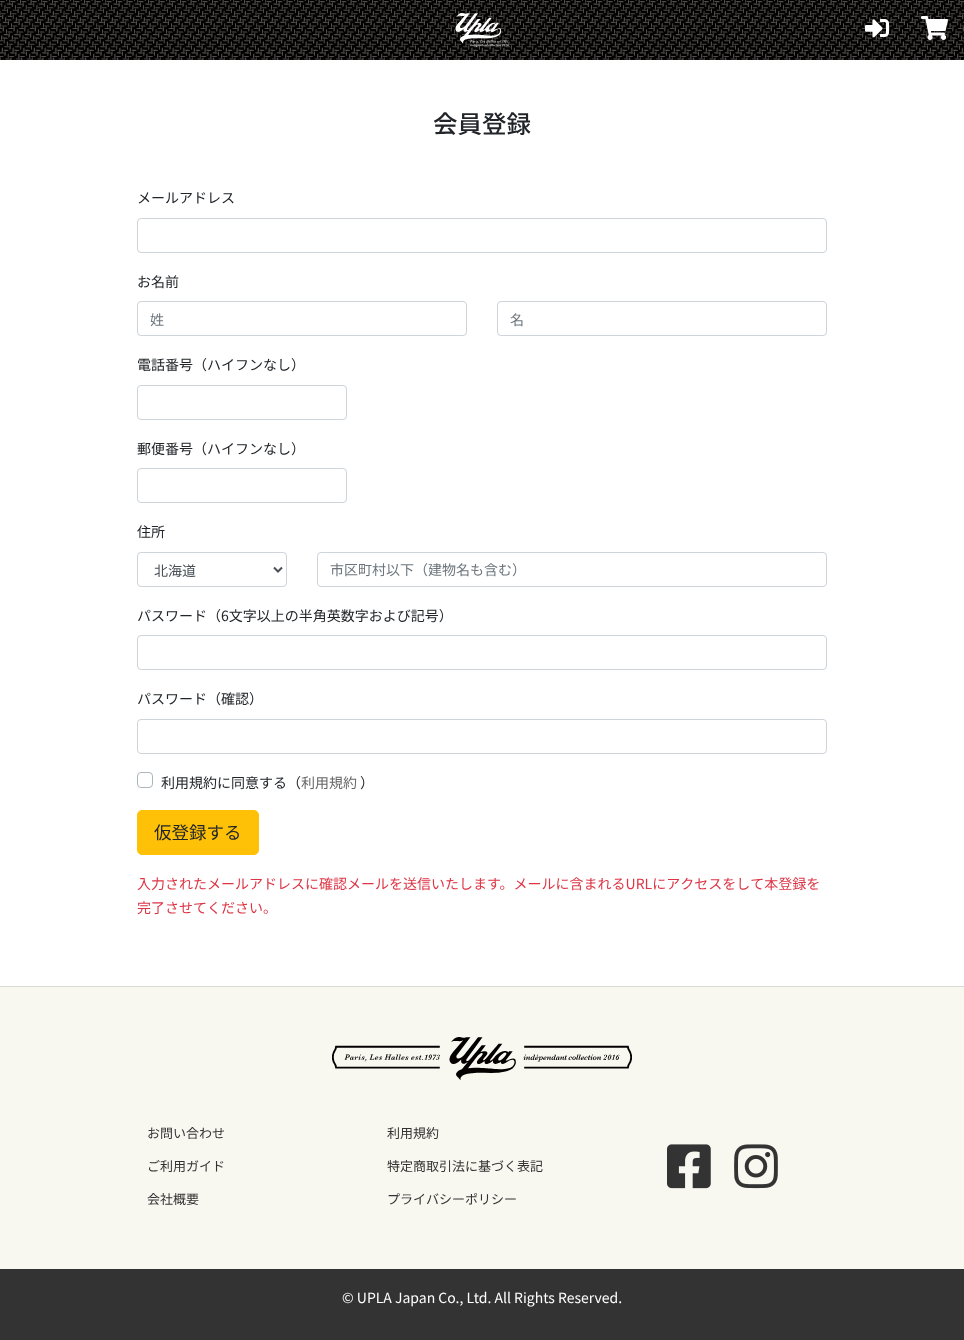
(async () => {
const canvas = document.querySelector("canvas")
canvas.width = 964
canvas.height = 1340
const c = canvas.getContext("2d")
c.miterLimit = 4
c.fontKerning = "normal"
function T(s,x,y){c.fillText(s,x,y)}
function R(x,y,w,h){c.fillRect(x,y,w,h)}
async function I(src,x,y,w,h){const img=new Image();img.src=src;await img.decode();c.drawImage(img,x,y,w,h)}
let path
c.fillStyle="#333"
R(0,0,964,1340)
await I("1.png",0,0,964,60)
await I("2.png",455,13,54,34)
await I("3.png",865,19,24,19)
await I("4.png",921,16,27,24)
c.fillStyle="#fff"
R(0,60,964,926)
c.font="500 24.5px Noto Sans JP"
c.fillStyle="#212529"
T("会員登録",433,133)
c.font="14px Noto Sans JP"
T("メールアドレス",137,203)
c.beginPath()
c.roundRect(137.5,218.5,689,34,3.5)
c.strokeStyle="#ced4da"
c.stroke()
T("お名前",137,287)
c.beginPath()
c.roundRect(137.5,301.5,329,34,3.5)
c.stroke()
c.fillStyle="#6c757d"
T("姓",150,325)
c.beginPath()
c.roundRect(497.5,301.5,329,34,3.5)
c.stroke()
T("名",510,325)
c.fillStyle="#212529"
T("電話番号（ハイフンなし）",137,370)
c.beginPath()
c.roundRect(137.5,385.5,209,34,3.5)
c.stroke()
T("郵便番号（ハイフンなし）",137,454)
c.beginPath()
c.roundRect(137.5,468.5,209,34,3.5)
c.stroke()
T("住所",137,537)
c.beginPath()
c.roundRect(137.5,552.5,149,34,3.5)
c.stroke()
path = new Path2D("M274 567.5l4 4l4-4")
c.strokeStyle="#495057"
c.lineWidth=2
c.stroke(path)
c.fillStyle="#495057"
T("北海道",154,576)
c.beginPath()
c.roundRect(317.5,552.5,509,34,3.5)
c.strokeStyle="#ced4da"
c.lineWidth=1
c.stroke()
c.fillStyle="#6c757d"
T("市区町村以下（建物名も含む）",330,575)
c.fillStyle="#212529"
T("パスワード（6文字以上の半角英数字および記号）",137,621)
c.beginPath()
c.roundRect(137.5,635.5,689,34,3.5)
c.stroke()
T("パスワード（確認）",137,704)
c.beginPath()
c.roundRect(137.5,719.5,689,34,3.5)
c.stroke()
c.beginPath()
c.roundRect(137.5,772.5,15,15,3.5)
c.strokeStyle="#adb5bd"
c.stroke()
T("利用規約に同意する（",161,788)
c.fillStyle="#666"
T("利用規約",301,788)
c.fillStyle="#212529"
T("）",360,788)
c.fillStyle="#ffc107"
c.beginPath()
c.roundRect(137.5,810.5,121,44,4.5)
c.fill()
c.strokeStyle="#ffc107"
c.stroke()
c.font="17.5px Noto Sans JP"
c.fillStyle="#212529"
T("仮登録する",154,839)
c.font="14px Noto Sans JP"
c.fillStyle="#dc3545"
T("入力されたメールアドレスに確認メールを送信いたします。メールに含まれるURLにアクセスをして本登録を",137,889)
T("完了させてください。",137,913)
c.fillStyle="#f8f7f0"
R(0,987,964,282)
c.fillStyle="#dad9d2"
R(0,986,964,1)
await I("5.png",332,1037,300,43)
c.font="13px Noto Sans JP"
c.fillStyle="#333"
T("お問い合わせ",147,1138)
T("ご利用ガイド",147,1171)
T("会社概要",147,1204)
T("利用規約",387,1138)
T("特定商取引法に基づく表記",387,1171)
T("プライバシーポリシー",387,1204)
await I("6.png",667,1144,44,45)
await I("7.png",734,1144,44,45)
c.font="14px Noto Sans JP"
c.fillStyle="#fff"
T("© UPLA Japan Co., Ltd. All Rights Reserved.",342,1303)
})()
